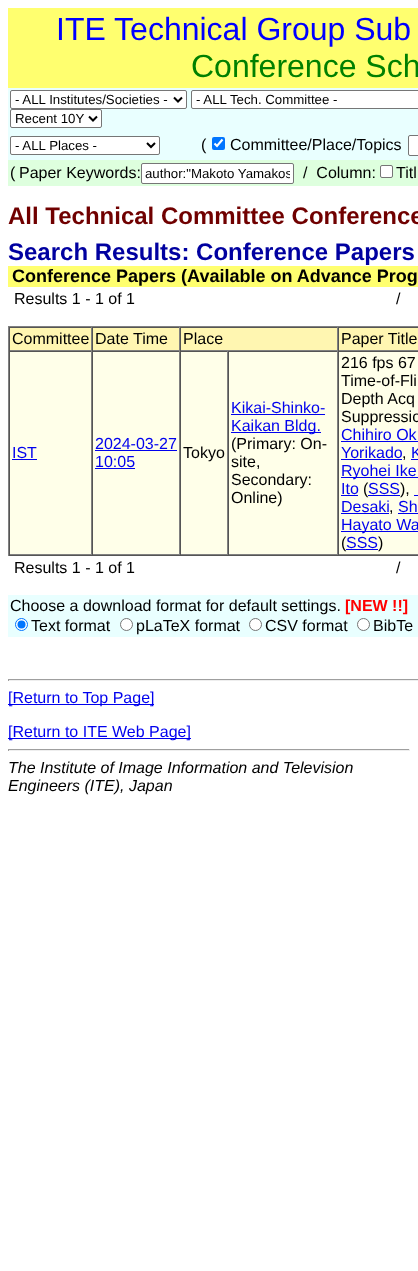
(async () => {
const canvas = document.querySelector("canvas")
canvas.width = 418
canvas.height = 1271
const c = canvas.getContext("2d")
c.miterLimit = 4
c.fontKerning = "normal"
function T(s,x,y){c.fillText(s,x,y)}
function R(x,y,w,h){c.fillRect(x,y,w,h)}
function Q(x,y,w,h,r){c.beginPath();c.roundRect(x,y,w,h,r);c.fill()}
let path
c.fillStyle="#fff"
R(0,0,418,1271)
c.fillStyle="#ffff6f"
R(8,8,410,80)
c.font="32px Liberation Sans"
c.fillStyle="#00f"
T("ITE Technical Group Sub",56,40)
c.fillStyle="#008000"
T("Conference Sch",191,77)
c.fillStyle="#e9ffff"
R(8,88,410,42)
c.fillStyle="#fff"
c.beginPath()
c.roundRect(10.5,90.5,176,18,1.5)
c.fill()
c.strokeStyle="#767676"
c.stroke()
path = new Path2D("M174 97.5l4 4l4-4")
c.strokeStyle="#000"
c.lineWidth=2
c.stroke(path)
c.font="13.25px Liberation Sans"
c.fillStyle="#000"
T("- ALL Institutes/Societies -",15,104)
c.fillStyle="#fff"
c.beginPath()
c.roundRect(191.5,90.5,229,18,1.5)
c.fill()
c.strokeStyle="#767676"
c.lineWidth=1
c.stroke()
c.fillStyle="#000"
T("- ALL Tech. Committee -",196,104)
c.fillStyle="#fff"
c.beginPath()
c.roundRect(10.5,109.5,91,18,1.5)
c.fill()
c.stroke()
path = new Path2D("M89 116.5l4 4l4-4")
c.strokeStyle="#000"
c.lineWidth=2
c.stroke(path)
c.fillStyle="#000"
T("Recent 10Y",15,123)
c.fillStyle="#e9ffff"
R(8,130,410,30)
c.fillStyle="#fff"
c.beginPath()
c.roundRect(10.5,136.5,149,18,1.5)
c.fill()
c.strokeStyle="#767676"
c.lineWidth=1
c.stroke()
path = new Path2D("M147 143l4 4l4-4")
c.strokeStyle="#000"
c.lineWidth=2
c.stroke(path)
c.fillStyle="#000"
T("- ALL Places -",15,150)
c.font="16px Liberation Sans"
T("(",201,150)
c.fillStyle="#0075ff"
Q(212,137,13,13,2)
path = new Path2D("M214.5 143.5l2.5 2.5l5.5-6.5")
c.strokeStyle="#fff"
c.lineWidth=2.1
c.stroke(path)
c.fillStyle="#000"
T("Committee/Place/Topics",230,150)
c.fillStyle="#fff"
c.beginPath()
c.roundRect(408.5,135.5,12,20,1.5)
c.fill()
c.strokeStyle="#767676"
c.lineWidth=1
c.stroke()
c.fillStyle="#deffde"
R(8,160,410,26)
c.fillStyle="#000"
T("(",10,178)
T("Paper Keywords:",19,178)
c.fillStyle="#fff"
c.beginPath()
c.roundRect(141.5,163.5,152,20,1.5)
c.fill()
c.stroke()
c.save()
c.beginPath()
c.rect(145,166,145,15)
c.clip()
c.font="13.25px Liberation Sans"
c.fillStyle="#000"
T("author:\"Makoto Yamakos",145,178)
c.restore()
c.fillStyle="#000"
T("/  Column:",303,178)
c.fillStyle="#fff"
c.beginPath()
c.roundRect(380.5,165.5,12,12,1.5)
c.fill()
c.stroke()
c.fillStyle="#000"
T("Titl",396,178)
c.font="bold 24px Liberation Sans"
c.fillStyle="#700000"
T("All Technical Committee Conference",8,224)
c.fillStyle="#0000a0"
T("Search Results: Conference Papers",8,260)
c.fillStyle="#ffff6f"
R(8,266,410,21)
c.font="bold 18px Liberation Sans"
c.fillStyle="#000"
T("Conference Papers (Available on Advance Prog",12,282)
c.font="16px Liberation Sans"
T("Results 1 - 1 of 1",14,304)
T("/",396,304)
c.fillStyle="#808080"
R(8,326,410,1)
c.fillStyle="#555"
R(8,555,410,1)
c.fillStyle="#808080"
R(8,326,1,230)
c.fillStyle="#fff6b1"
R(10,328,81,22)
c.fillStyle="#555"
R(9,327,409,1)
c.fillStyle="#808080"
R(91,327,1,24)
R(9,350,83,1)
c.fillStyle="#555"
R(9,327,1,24)
c.fillStyle="#000"
T("Committee",12,344)
c.fillStyle="#fff6b1"
R(93,328,86,22)
c.fillStyle="#808080"
R(179,327,1,24)
R(92,350,88,1)
c.fillStyle="#555"
R(92,327,1,24)
c.fillStyle="#000"
T("Date Time",95,344)
c.fillStyle="#fff6b1"
R(181,328,156,22)
c.fillStyle="#808080"
R(337,327,1,24)
R(180,350,238,1)
c.fillStyle="#555"
R(180,327,1,24)
c.fillStyle="#000"
T("Place",183,344)
c.fillStyle="#fff6b1"
R(339,328,79,22)
c.fillStyle="#555"
R(338,327,1,24)
c.fillStyle="#000"
T("Paper Title",341,344)
c.fillStyle="#ffffe9"
R(10,352,81,202)
c.fillStyle="#555"
R(9,351,409,1)
c.fillStyle="#808080"
R(91,351,1,204)
R(9,554,83,1)
c.fillStyle="#555"
R(9,351,1,204)
c.fillStyle="#00e"
T("IST",12,458)
R(12,459,25,1)
c.fillStyle="#ffffe9"
R(93,352,86,202)
c.fillStyle="#808080"
R(179,351,1,204)
R(92,554,88,1)
c.fillStyle="#555"
R(92,351,1,204)
c.fillStyle="#00e"
T("2024-03-27",95,449)
R(95,450,82,1)
T("10:05",95,467)
R(95,468,40,1)
c.fillStyle="#ffffe9"
R(181,352,46,202)
c.fillStyle="#808080"
R(227,351,1,204)
R(180,554,48,1)
c.fillStyle="#555"
R(180,351,1,204)
c.fillStyle="#000"
T("Tokyo",183,458)
c.fillStyle="#ffffe9"
R(229,352,108,202)
c.fillStyle="#808080"
R(337,351,1,204)
R(228,554,190,1)
c.fillStyle="#555"
R(228,351,1,204)
c.fillStyle="#00e"
T("Kikai-Shinko-",231,413)
R(231,414,94,1)
R(231,432,90,1)
T("Kaikan Bldg.",231,431)
c.fillStyle="#000"
T("(Primary: On-",231,449)
T("site,",231,467)
T("Secondary:",231,485)
T("Online)",231,503)
c.fillStyle="#ffffe9"
R(339,352,79,202)
c.fillStyle="#555"
R(338,351,1,204)
c.fillStyle="#000"
T("216 fps 67",341,368)
T("Time-of-Fli",341,386)
T("Depth Acq",341,404)
T("Suppressio",341,422)
c.fillStyle="#00e"
T("Chihiro Ok",341,440)
R(341,441,77,1)
T("Yorikado",341,458)
R(341,459,61,1)
T("K",411,458)
R(411,459,7,1)
c.fillStyle="#000"
T(",",402,458)
c.fillStyle="#00e"
R(341,477,77,1)
T("Ryohei Ike",341,476)
T("Ito",341,494)
R(341,495,17,1)
c.fillStyle="#000"
T("(",363,494)
c.fillStyle="#00e"
T("SSS",368,494)
R(368,495,32,1)
c.fillStyle="#000"
T("),",400,494)
c.fillStyle="#00e"
R(414,495,4,1)
T("Desaki",341,512)
R(341,513,48,1)
c.fillStyle="#000"
T(",",389,512)
c.fillStyle="#00e"
T("Sh",398,512)
R(398,513,20,1)
R(341,531,77,1)
T("Hayato Wa",341,530)
c.fillStyle="#000"
T("(",341,548)
c.fillStyle="#00e"
T("SSS",346,548)
R(346,549,32,1)
c.fillStyle="#000"
T(")",378,548)
T("Results 1 - 1 of 1",14,573)
T("/",396,573)
c.fillStyle="#e9ffff"
R(8,595,410,42)
c.fillStyle="#000"
T("Choose a download format for default settings.",10,611)
c.font="bold 16px Liberation Sans"
c.fillStyle="#f00"
T("[NEW !!]",345,611)
c.fillStyle="#fff"
c.beginPath()
c.arc(21.5,624.5,6,0,7)
c.fill()
c.strokeStyle="#0075ff"
c.stroke()
c.fillStyle="#0075ff"
c.beginPath()
c.arc(21.5,624.5,4,0,7)
c.fill()
c.font="16px Liberation Sans"
c.fillStyle="#000"
T("Text format",31,631)
c.fillStyle="#fff"
c.beginPath()
c.arc(126.5,624.5,6,0,7)
c.fill()
c.strokeStyle="#767676"
c.stroke()
c.fillStyle="#000"
T("pLaTeX format",136,631)
c.fillStyle="#fff"
c.beginPath()
c.arc(255.5,624.5,6,0,7)
c.fill()
c.stroke()
c.fillStyle="#000"
T("CSV format",265,631)
c.fillStyle="#fff"
c.beginPath()
c.arc(363.5,624.5,6,0,7)
c.fill()
c.stroke()
c.fillStyle="#000"
T("BibTe",373,631)
c.fillStyle="#9f9f9f"
R(8,679,410,1)
c.fillStyle="#eee"
R(8,680,410,1)
c.fillStyle="#9f9f9f"
R(8,679,1,2)
c.fillStyle="#00e"
R(8,704,146,1)
T("[Return to Top Page]",8,703)
R(8,738,183,1)
T("[Return to ITE Web Page]",8,737)
c.fillStyle="#9f9f9f"
R(8,749,402,1)
c.fillStyle="#eee"
R(409,749,1,2)
R(8,750,402,1)
c.fillStyle="#9f9f9f"
R(8,749,1,2)
c.font="italic 16px Liberation Sans"
c.fillStyle="#000"
T("The Institute of Image Information and Television",8,773)
T("Engineers (ITE), Japan",8,791)
})()
